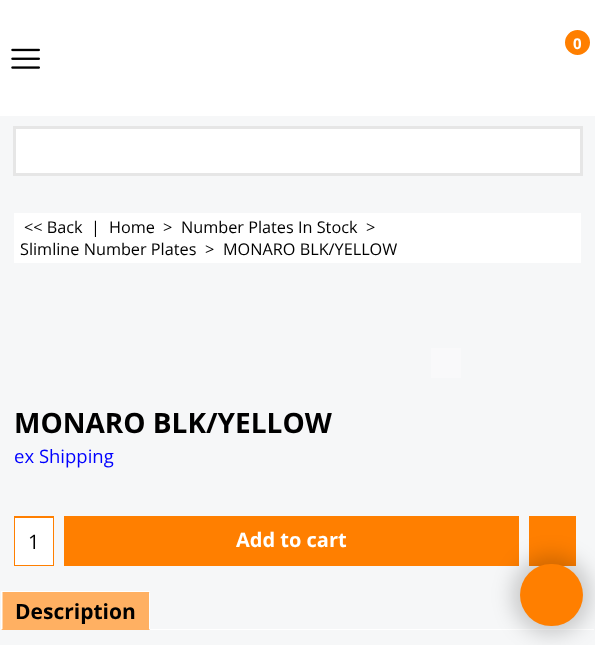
(async () => {
const canvas = document.querySelector("canvas")
canvas.width = 595
canvas.height = 645
const c = canvas.getContext("2d")
c.miterLimit = 4
c.fontKerning = "normal"
function T(s,x,y){c.fillText(s,x,y)}
function R(x,y,w,h){c.fillRect(x,y,w,h)}
function Q(x,y,w,h,r){c.beginPath();c.roundRect(x,y,w,h,r);c.fill()}
async function I(src,x,y,w,h){const img=new Image();img.src=src;await img.decode();c.drawImage(img,x,y,w,h)}
let path
c.fillStyle="#f6f7f8"
R(0,0,595,645)
c.fillStyle="#fff"
R(0,0,595,116)
c.fillStyle="#ff7f00"
c.beginPath()
c.arc(577.5,42.5,14.5,0,7)
c.fill()
c.strokeStyle="#fff"
c.lineWidth=4
c.stroke()
c.font="bold 15px Open Sans"
c.fillStyle="#fff"
T("0",573,49)
await I("1.png",11,48,29,21)
c.beginPath()
c.rect(14.5,127.5,567,47)
c.fill()
c.strokeStyle="#e6e6e6"
c.lineWidth=3
c.stroke()
R(14,213,567,50)
c.font="16.25px Open Sans"
c.fillStyle="#000"
T("<< Back",24,233)
T("|",91,233)
T("Home",109,233)
T(">",163,233)
T("Number Plates In Stock",181,233)
T(">",366,233)
T("Slimline Number Plates",20,255)
T(">",205,255)
T("MONARO BLK/YELLOW",223,255)
c.fillStyle="#f9f9fa"
R(431,348,30,30)
c.font="bold 28px Open Sans"
c.fillStyle="#000"
T("MONARO BLK/YELLOW",14,433)
c.font="18.5px Open Sans"
c.fillStyle="#00f"
T("ex Shipping",14,463)
c.fillStyle="#ff7f00"
R(14,516,40,50)
c.fillStyle="#fff"
R(15,518,38,47)
c.font="20px Open Sans"
c.fillStyle="#000"
T("1",28,549)
c.fillStyle="#ff7f00"
R(64,516,455,50)
c.font="bold 20px Open Sans"
c.fillStyle="#fff"
T("Add to cart",236,547)
c.fillStyle="#ff7f00"
R(529,516,47,50)
c.fillStyle="#ffb062"
R(1,592,149,38)
c.fillStyle="#fff"
R(1,591,149,1)
path = new Path2D("M150 591v39l-1-1v-36.5z")
c.fill(path)
path = new Path2D("M1 630v-39l1.5 1.5v36.5z")
c.fill(path)
c.font="bold 21px Open Sans"
c.fillStyle="#000"
T("Description",15,619)
c.fillStyle="#fff"
R(150,629,444,1)
c.fillStyle="#00000033"
c.filter="blur(10.5px)"
c.beginPath()
c.roundRect(513,556,77,78,38.5)
c.fill()
c.filter="none"
c.fillStyle="#ff7f00"
Q(520,564,63,62,31)
})()
